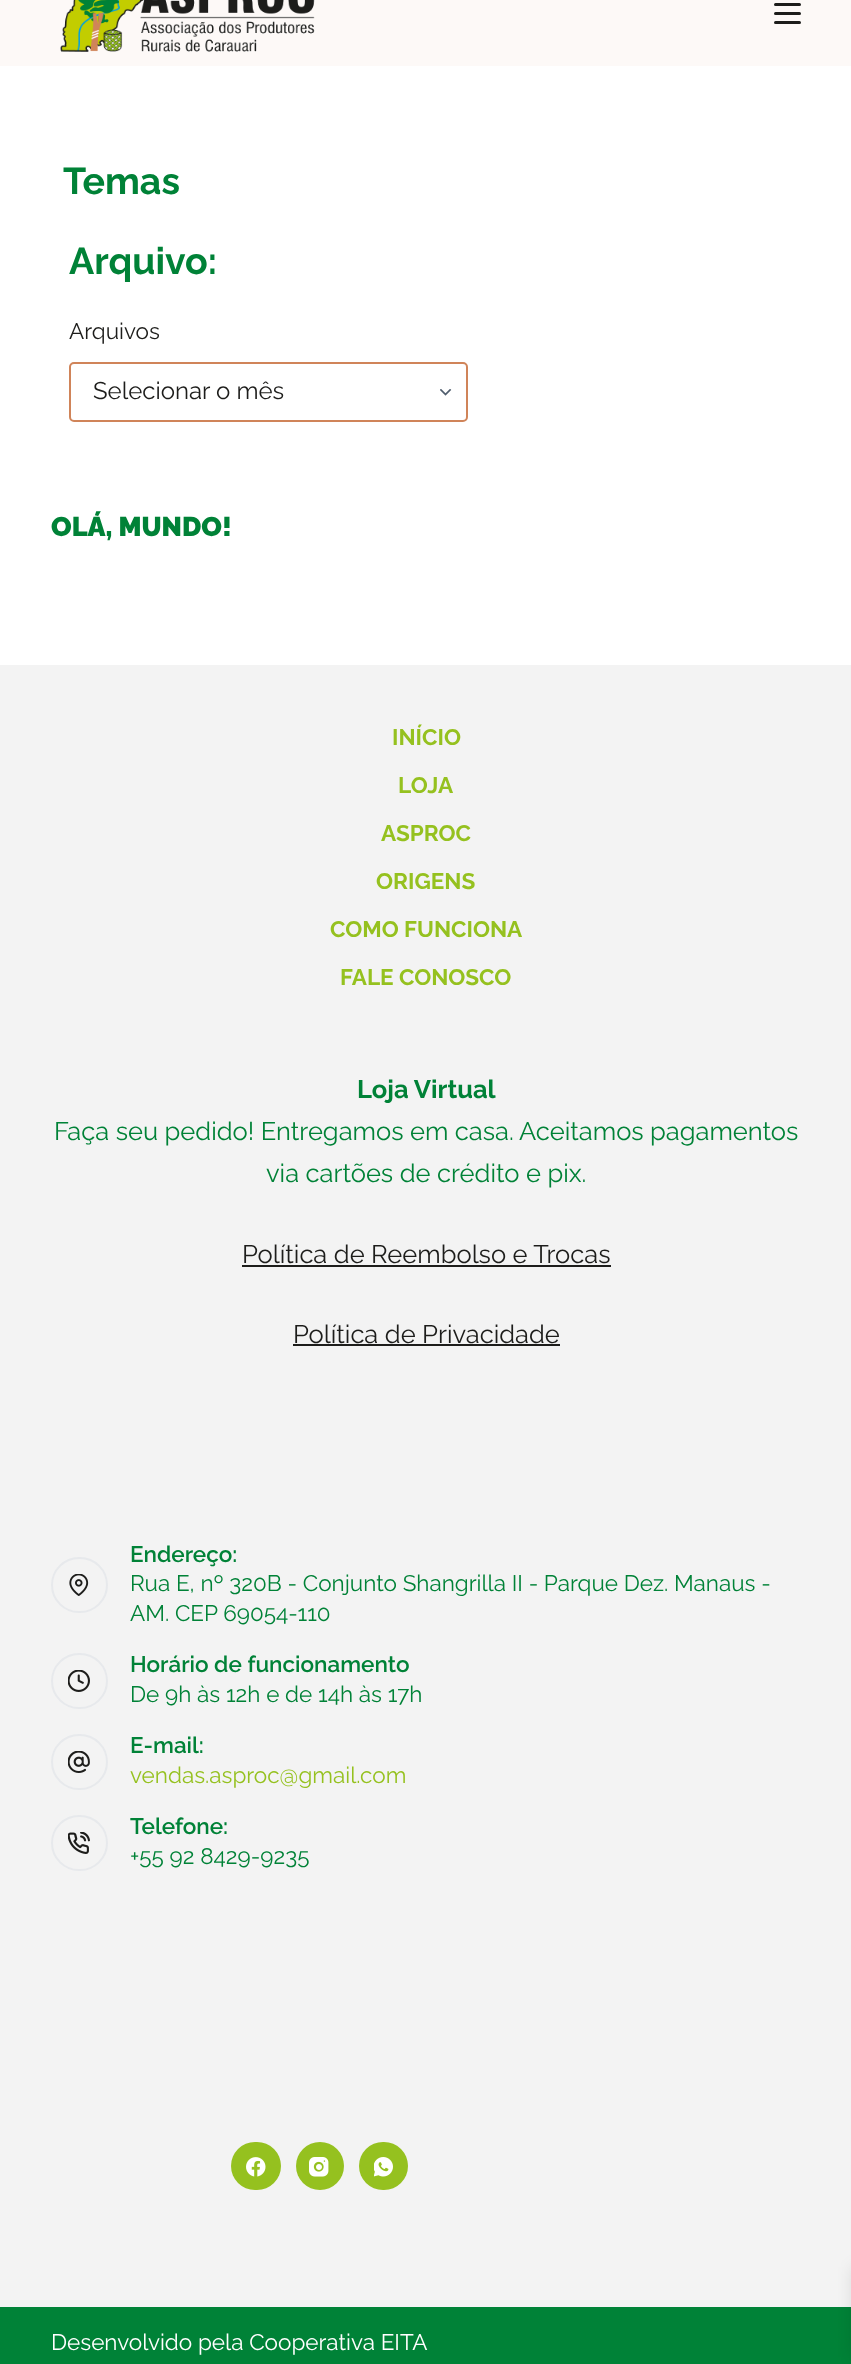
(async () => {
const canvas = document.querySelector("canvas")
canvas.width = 851
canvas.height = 2364
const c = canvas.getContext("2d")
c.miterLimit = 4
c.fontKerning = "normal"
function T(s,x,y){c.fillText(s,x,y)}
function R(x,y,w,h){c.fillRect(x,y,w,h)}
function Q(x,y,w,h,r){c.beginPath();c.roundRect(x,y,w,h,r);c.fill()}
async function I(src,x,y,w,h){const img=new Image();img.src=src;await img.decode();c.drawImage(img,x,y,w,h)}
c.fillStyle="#fff"
R(0,0,851,2364)
c.fillStyle="#fdf9f7"
R(0,0,851,66)
await I("1.png",60,0,255,52)
c.fillStyle="#1d1d1b"
Q(774,3,27,3,1.5)
Q(774,12,27,3,1.5)
Q(774,21,27,3,1.5)
c.font="bold 37.5px Raleway"
c.fillStyle="#008237"
T("Temas",63,194)
T("Arquivo:",69,274)
c.font="22.5px Raleway"
c.fillStyle="#1d1d1b"
T("Arquivos",69,339)
await I("2.png",440,389,12,7)
c.beginPath()
c.roundRect(70,363,397,58,4)
c.strokeStyle="#d08459"
c.lineWidth=2
c.stroke()
c.font="24px Raleway"
T("Selecionar o mês",93,399)
c.font="900 27px Raleway"
c.fillStyle="#008237"
T("OLÁ, MUNDO!",51,536)
c.fillStyle="#f3f3f3"
R(0,665,851,1642)
c.font="bold 22.5px Raleway"
c.fillStyle="#95c11f"
T("INÍCIO",392,745)
T("LOJA",398,793)
T("ASPROC",381,841)
T("ORIGENS",376,889)
T("COMO FUNCIONA",330,937)
T("FALE CONOSCO",340,985)
c.font="bold 25.5px Raleway"
c.fillStyle="#008237"
T("Loja Virtual",357,1098)
c.font="25.5px Raleway"
T("Faça seu pedido! Entregamos em casa.",54,1140)
T("Aceitamos pagamentos",519,1140)
T("via cartões de crédito e pix.",266,1182)
c.fillStyle="#1d1d1b"
T("Política de Reembolso e Trocas",242,1263)
R(242,1265,369,2)
T("Política de Privacidade",293,1343)
R(293,1344,267,2)
c.beginPath()
c.roundRect(52,1558,55,54,27)
c.strokeStyle="#e7e9ec"
c.stroke()
await I("3.png",69,1574,20,22)
c.font="600 22.5px Raleway"
c.fillStyle="#008237"
T("Endereço:",130,1562)
c.font="22.5px Raleway"
T("Rua E, nº 320B - Conjunto Shangrilla II - Parque Dez. Manaus -",130,1591)
T("AM. CEP 69054-110",130,1621)
c.beginPath()
c.roundRect(52,1654,55,54,27)
c.stroke()
await I("4.png",68,1670,22,22)
c.font="600 22.5px Raleway"
T("Horário de funcionamento",130,1672)
c.font="22.5px Raleway"
T("De 9h às 12h e de 14h às 17h",130,1702)
c.beginPath()
c.roundRect(52,1735,55,54,27)
c.stroke()
await I("5.png",68,1751,22,22)
c.font="600 22.5px Raleway"
T("E-mail:",130,1753)
c.font="22.5px Raleway"
c.fillStyle="#95c11f"
T("vendas.asproc@gmail.com",130,1783)
c.beginPath()
c.roundRect(52,1816,55,54,27)
c.stroke()
await I("6.png",68,1832,22,22)
c.font="600 22.5px Raleway"
c.fillStyle="#008237"
T("Telefone:",130,1834)
c.font="22.5px Raleway"
T("+55 92 8429-9235",130,1864)
c.fillStyle="#95c11f"
Q(231,2142,50,48,24)
await I("7.png",246,2157,20,20)
c.beginPath()
c.arc(320,2166,24,0,7)
c.fill()
await I("8.png",309,2157,20,20)
Q(359,2142,49,48,24)
await I("9.png",374,2157,19,20)
c.fillStyle="#008237"
R(0,2307,851,57)
c.fillStyle="#fff"
T("Desenvolvido pela Cooperativa EITA",51,2350)
c.fillStyle="#0000001a"
c.filter="blur(7.5px)"
c.beginPath()
c.rect(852,2267,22,90)
c.fill()
c.filter="none"
})()
